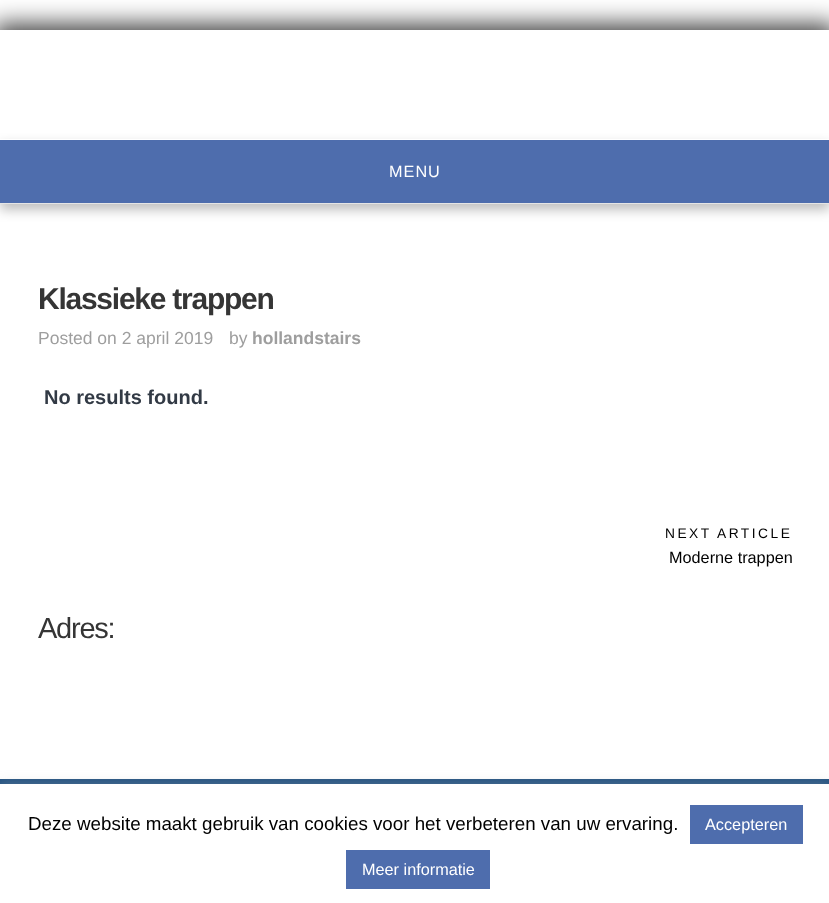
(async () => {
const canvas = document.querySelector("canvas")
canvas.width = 829
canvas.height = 903
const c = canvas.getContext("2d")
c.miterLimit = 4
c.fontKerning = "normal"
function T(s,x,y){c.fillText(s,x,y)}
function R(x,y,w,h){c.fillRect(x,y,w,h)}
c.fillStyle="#fff"
R(0,0,829,903)
c.save()
c.beginPath()
c.rect(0,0,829,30)
c.clip()
c.fillStyle="#000000bf"
c.filter="blur(12.5px)"
c.beginPath()
c.rect(-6,24,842,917)
c.fill()
c.filter="none"
c.restore()
c.fillStyle="#00000040"
c.filter="blur(6px)"
c.beginPath()
c.rect(0,145,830,65)
c.fill()
c.filter="none"
c.fillStyle="#4e6dad"
R(0,140,829,63)
c.fillStyle="#fff"
R(0,139,829,1)
c.fillStyle="#e5e5e5"
R(0,203,829,1)
c.letterSpacing="1px"
c.font="16.25px Liberation Sans"
c.fillStyle="#fff"
T("MENU",389,177)
c.letterSpacing="-1.25px"
c.font="bold 30px Liberation Sans"
c.fillStyle="#353535"
T("Klassieke trappen",38,309)
c.letterSpacing="0px"
c.font="17.5px Liberation Sans"
c.fillStyle="#9e9e9e"
T("Posted on 2 april 2019",38,344)
T("by",229,344)
c.font="bold 17.5px Liberation Sans"
T("hollandstairs",252,344)
c.font="bold 20px Liberation Sans"
c.fillStyle="#323a45"
T("No results found.",44,404)
c.letterSpacing="2.5px"
c.font="13.75px Liberation Sans"
c.fillStyle="#000"
T("NEXT ARTICLE",665,538)
c.letterSpacing="0px"
c.font="16.25px Liberation Sans"
T("Moderne trappen",669,563)
c.letterSpacing="-1.25px"
c.font="29px Liberation Sans"
c.fillStyle="#353535"
T("Adres:",38,638)
c.fillStyle="#245382"
R(0,779,829,5)
c.fillStyle="#acabab4d"
c.filter="blur(6px)"
c.beginPath()
c.rect(0,783,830,120)
c.fill()
c.filter="none"
c.fillStyle="#fff"
R(0,784,829,119)
c.letterSpacing="0px"
c.font="18.75px Liberation Sans"
c.fillStyle="#000"
T("Deze website maakt gebruik van cookies voor het verbeteren van uw ervaring.",28,830)
c.fillStyle="#4e6dad"
R(690,805,113,39)
c.font="16.25px Liberation Sans"
c.fillStyle="#fff"
T("Accepteren",705,830)
c.fillStyle="#4e6dad"
R(346,850,144,39)
c.fillStyle="#fff"
T("Meer informatie",362,875)
})()
